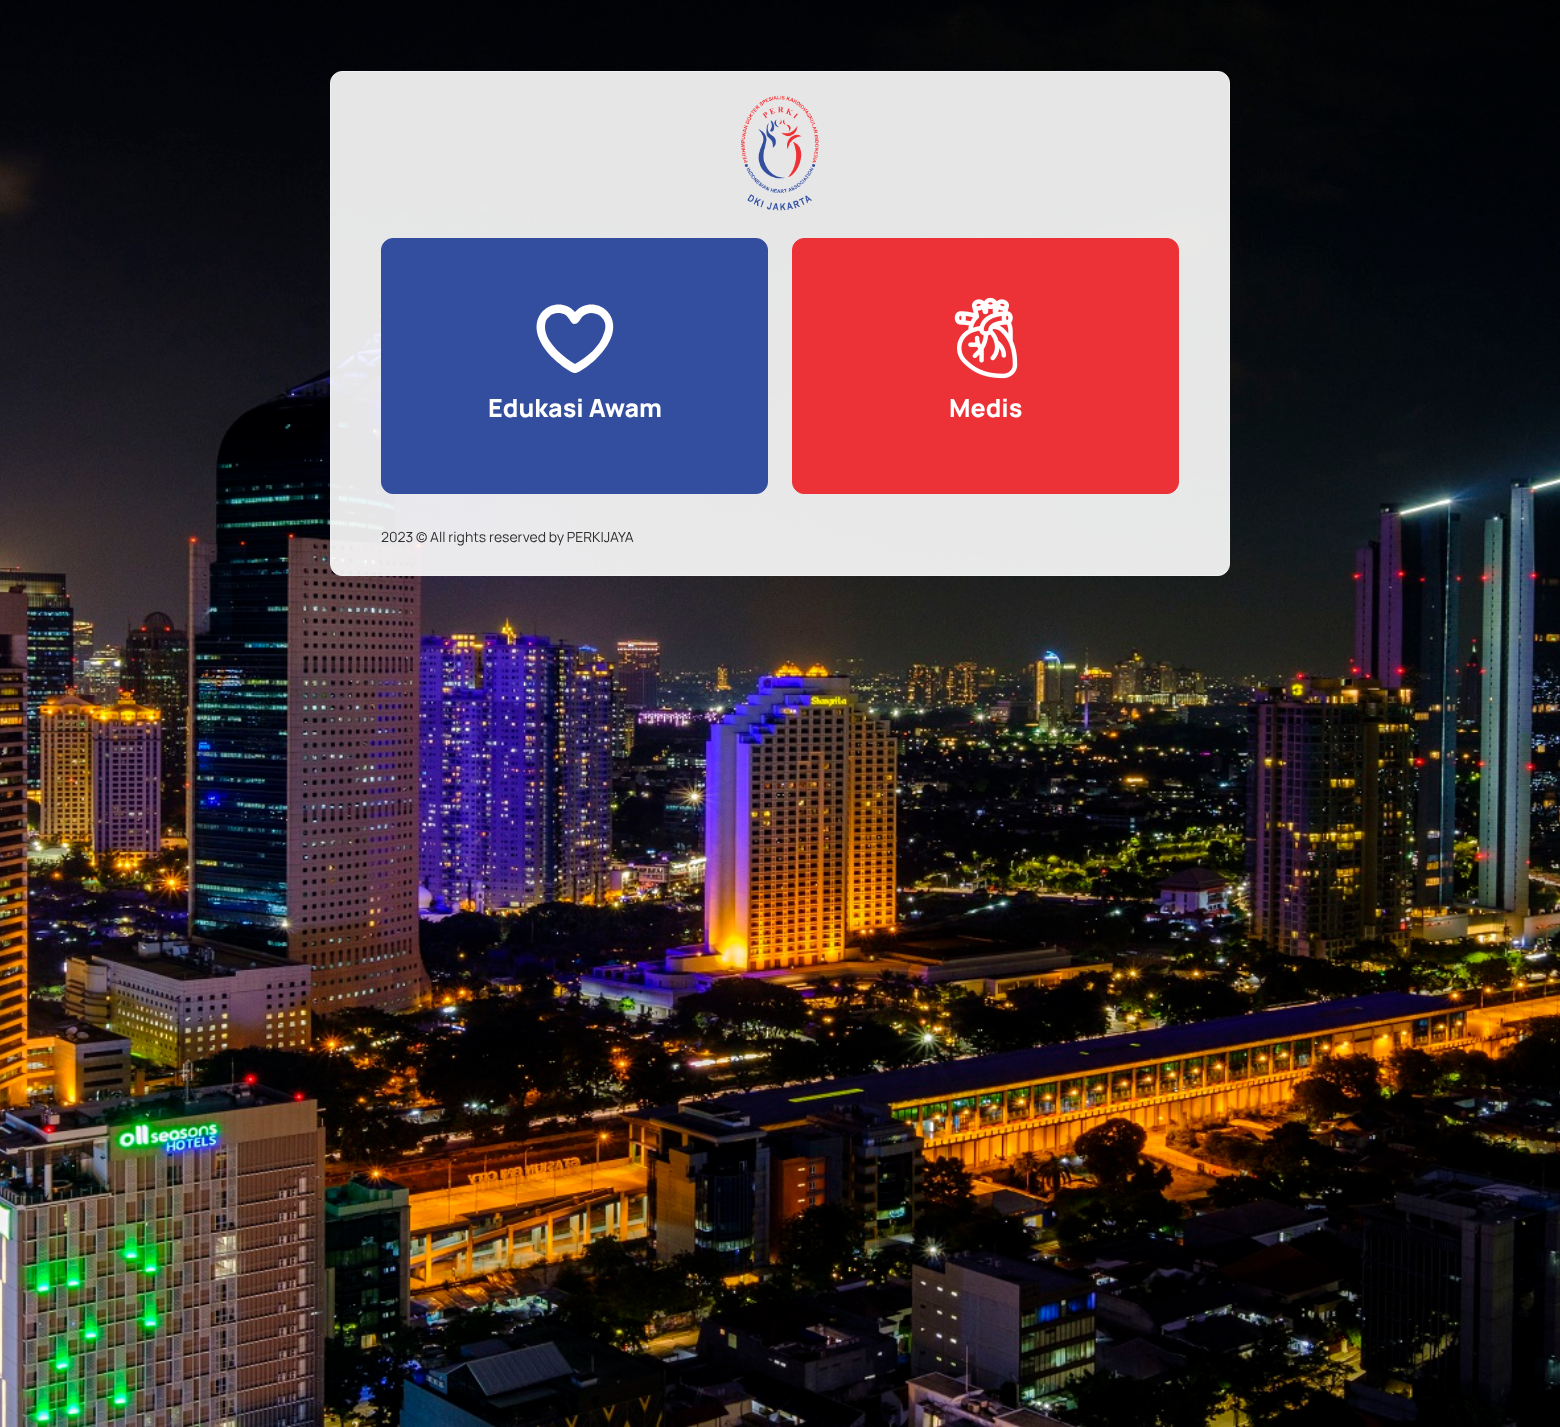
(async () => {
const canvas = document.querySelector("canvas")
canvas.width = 1560
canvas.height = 1427
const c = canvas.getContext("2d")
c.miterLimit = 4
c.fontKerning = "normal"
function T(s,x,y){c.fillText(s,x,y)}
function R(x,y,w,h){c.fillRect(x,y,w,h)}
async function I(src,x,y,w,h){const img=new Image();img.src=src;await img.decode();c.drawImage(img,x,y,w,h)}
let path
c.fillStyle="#fff"
R(0,0,1560,1427)
await I("1.png",0,0,1560,1427)
c.fillStyle="#ffffffe6"
c.beginPath()
c.roundRect(330.5,71.5,899,504,11.5)
c.fill()
c.strokeStyle="#eef0f4"
c.stroke()
await I("2.png",741,95,78,116)
c.fillStyle="#334e9e"
c.beginPath()
c.roundRect(381.5,238.5,386,255,11.5)
c.fill()
c.strokeStyle="#334e9e"
c.stroke()
c.fillStyle="#fff"
path = new Path2D("M575 373c-5 0-18-11-21-14c-41-39 1-69 21-47c20-22 62 8 21 47c-3 3-16 14-21 14zm-17-60c-3 0-7 1-9 4c-3 2-4 6-4 10c0 17 23 33 30 37c12-7 25-17 29-31c2-5 2-10-1-14c-5-7-15-8-21-2c-2 2-3 7-8 7c-5-1-4-11-16-11z")
c.fill(path)
c.font="800 25px Manrope"
T("Edukasi Awam",488,417)
c.fillStyle="#ed3237"
c.beginPath()
c.roundRect(792.5,238.5,386,255,11.5)
c.fill()
c.strokeStyle="#ed3237"
c.stroke()
await I("3.png",954,297,64,82)
c.fillStyle="#fff"
T("Medis",949,417)
c.font="14px Manrope"
c.fillStyle="#2e2e2e"
T("2023 © All rights reserved by PERKIJAYA",381,542)
})()
